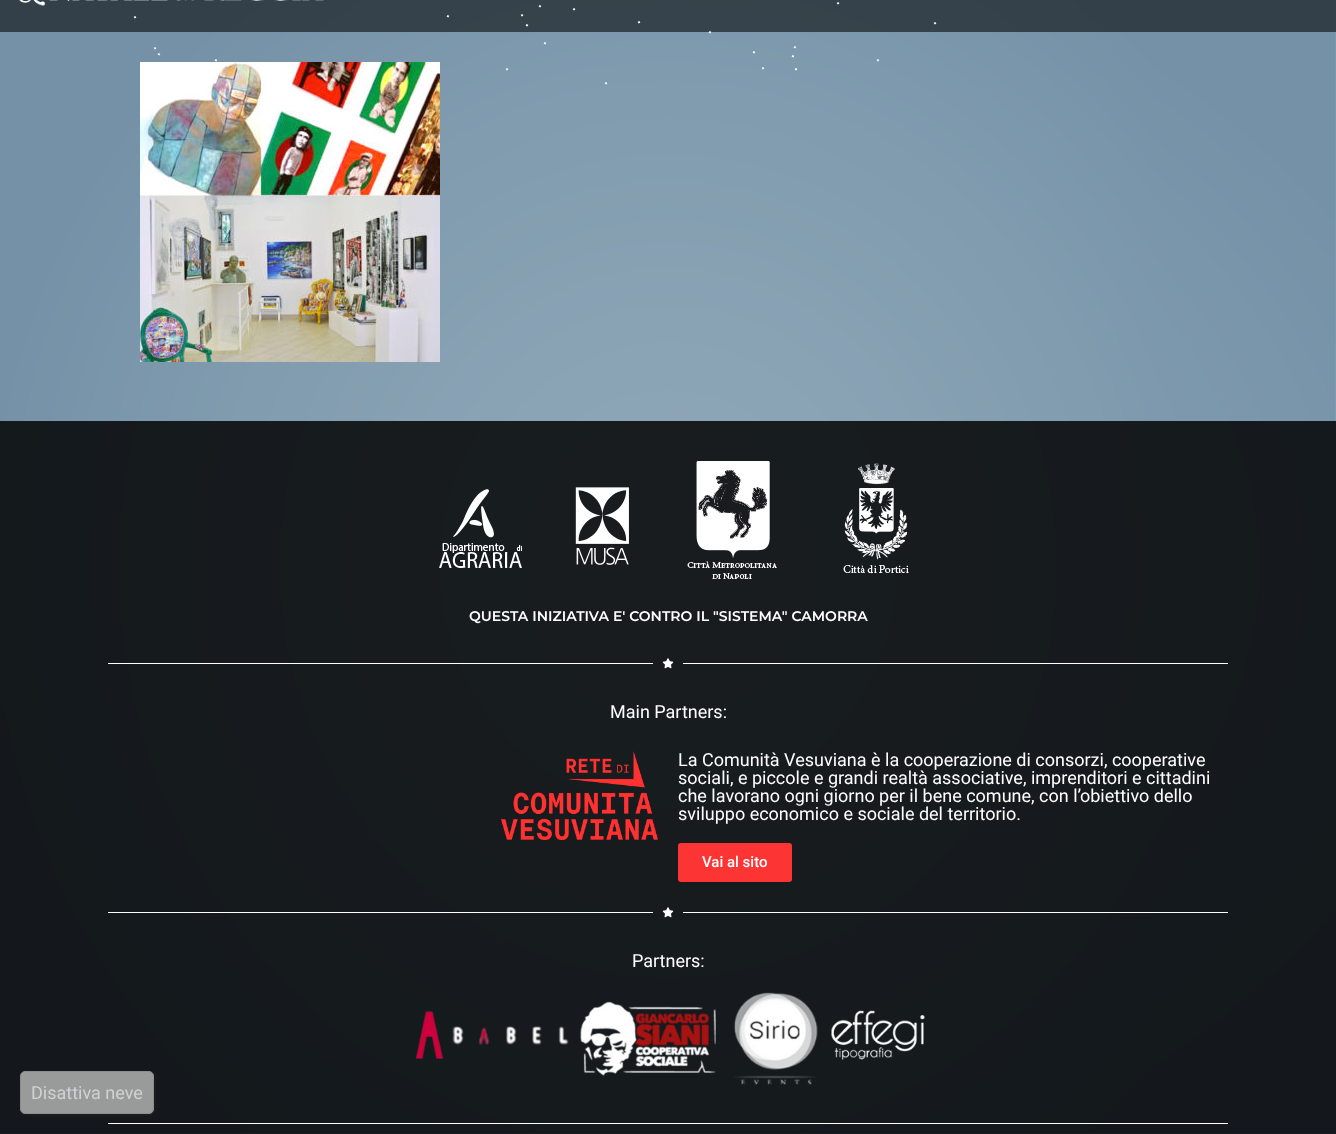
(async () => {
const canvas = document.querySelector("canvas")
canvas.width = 1336
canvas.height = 1134
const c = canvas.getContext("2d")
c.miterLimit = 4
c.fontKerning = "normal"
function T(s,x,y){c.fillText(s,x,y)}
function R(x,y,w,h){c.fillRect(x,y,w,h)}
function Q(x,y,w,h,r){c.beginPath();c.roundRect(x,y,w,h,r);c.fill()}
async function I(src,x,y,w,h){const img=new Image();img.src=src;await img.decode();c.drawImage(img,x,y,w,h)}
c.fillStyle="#fff"
R(0,0,1336,1134)
await I("1.png",0,0,1336,1134)
c.fillStyle="#0000008f"
R(0,0,1336,32)
await I("2.png",19,0,305,6)
await I("3.png",836,2,4,3)
await I("4.png",538,5,4,3)
await I("5.png",572,8,4,3)
await I("6.png",133,16,4,3)
await I("7.png",446,15,4,3)
await I("8.png",520,14,4,3)
await I("9.png",637,21,4,3)
await I("10.png",933,22,4,3)
await I("11.png",525,24,4,3)
await I("12.png",708,31,4,3)
await I("13.png",543,42,4,3)
await I("14.png",153,47,4,3)
await I("13.png",793,46,4,3)
await I("15.png",752,51,4,3)
await I("16.png",157,53,4,3)
await I("17.png",791,55,4,3)
await I("18.png",214,59,4,3)
await I("19.png",876,59,4,3)
await I("20.png",140,62,300,300)
await I("21.png",505,68,4,3)
await I("22.png",761,67,4,3)
await I("23.png",794,68,4,3)
c.fillStyle="#fff"
R(214,73,1,1)
await I("24.png",604,82,4,3)
c.fillStyle="#000000d4"
R(0,421,1336,713)
await I("25.png",439,461,470,118)
c.font="600 14px Montserrat"
c.fillStyle="#fff"
T("QUESTA INIZIATIVA E' CONTRO IL \"SISTEMA\" CAMORRA",469,621)
R(108,663,545,1)
await I("26.png",662,658,12,11)
R(683,663,545,1)
c.font="18px Roboto"
T("Main Partners:",610,718)
await I("27.png",501,751,157,89)
T("La Comunità Vesuviana è la cooperazione di consorzi, cooperative",678,766)
T("sociali, e piccole e grandi realtà associative, imprenditori e cittadini",678,784)
T("che lavorano ogni giorno per il bene comune, con l’obiettivo dello",678,802)
T("sviluppo economico e sociale del territorio.",678,820)
c.fillStyle="#fc3434"
Q(678,843,114,39,3)
c.font="500 15px Roboto"
c.fillStyle="#fff"
T("Vai al sito",702,867)
R(108,912,545,1)
await I("28.png",662,907,12,11)
R(683,912,545,1)
c.font="18px Roboto"
T("Partners:",632,967)
await I("29.png",415,992,510,93)
R(108,1123,1120,1)
c.fillStyle="#1f2021"
c.filter="blur(1.5px)"
c.beginPath()
c.roundRect(21,1072,134,43,5)
c.fill()
c.filter="none"
c.fillStyle="#999a9a"
c.beginPath()
c.roundRect(20.5,1071.5,133,42,4.5)
c.fill()
c.strokeStyle="#8c8d8e"
c.stroke()
c.fillStyle="#d0d1d2"
T("Disattiva neve",31,1099)
})()
